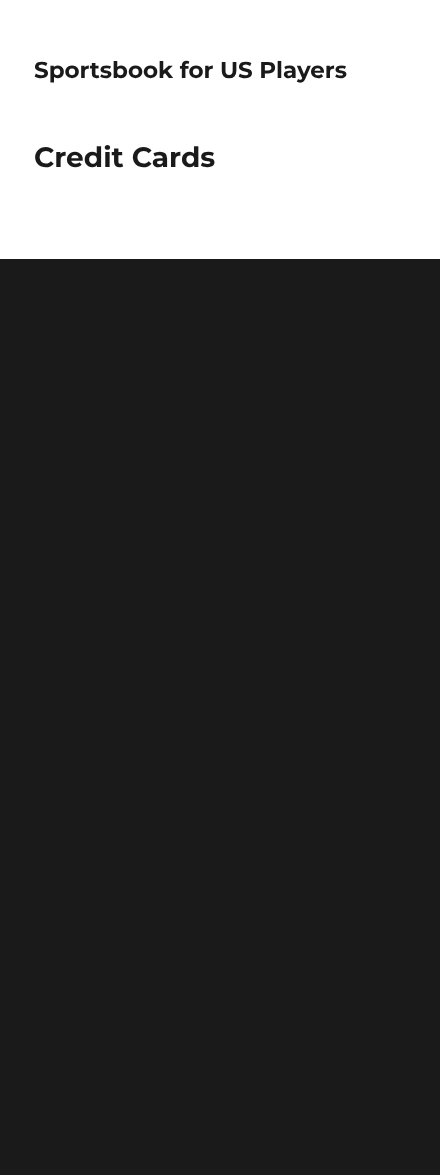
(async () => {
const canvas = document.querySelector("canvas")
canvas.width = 440
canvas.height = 1175
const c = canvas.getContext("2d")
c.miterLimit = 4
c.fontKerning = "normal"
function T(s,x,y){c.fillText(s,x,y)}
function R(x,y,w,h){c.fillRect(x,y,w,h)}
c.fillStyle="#1a1a1a"
R(0,0,440,1175)
c.fillStyle="#fff"
R(0,0,440,259)
c.font="bold 23px Montserrat"
c.fillStyle="#1a1a1a"
T("Sportsbook for US Players",34,78)
c.font="bold 28px Montserrat"
T("Credit Cards",34,167)
})()
